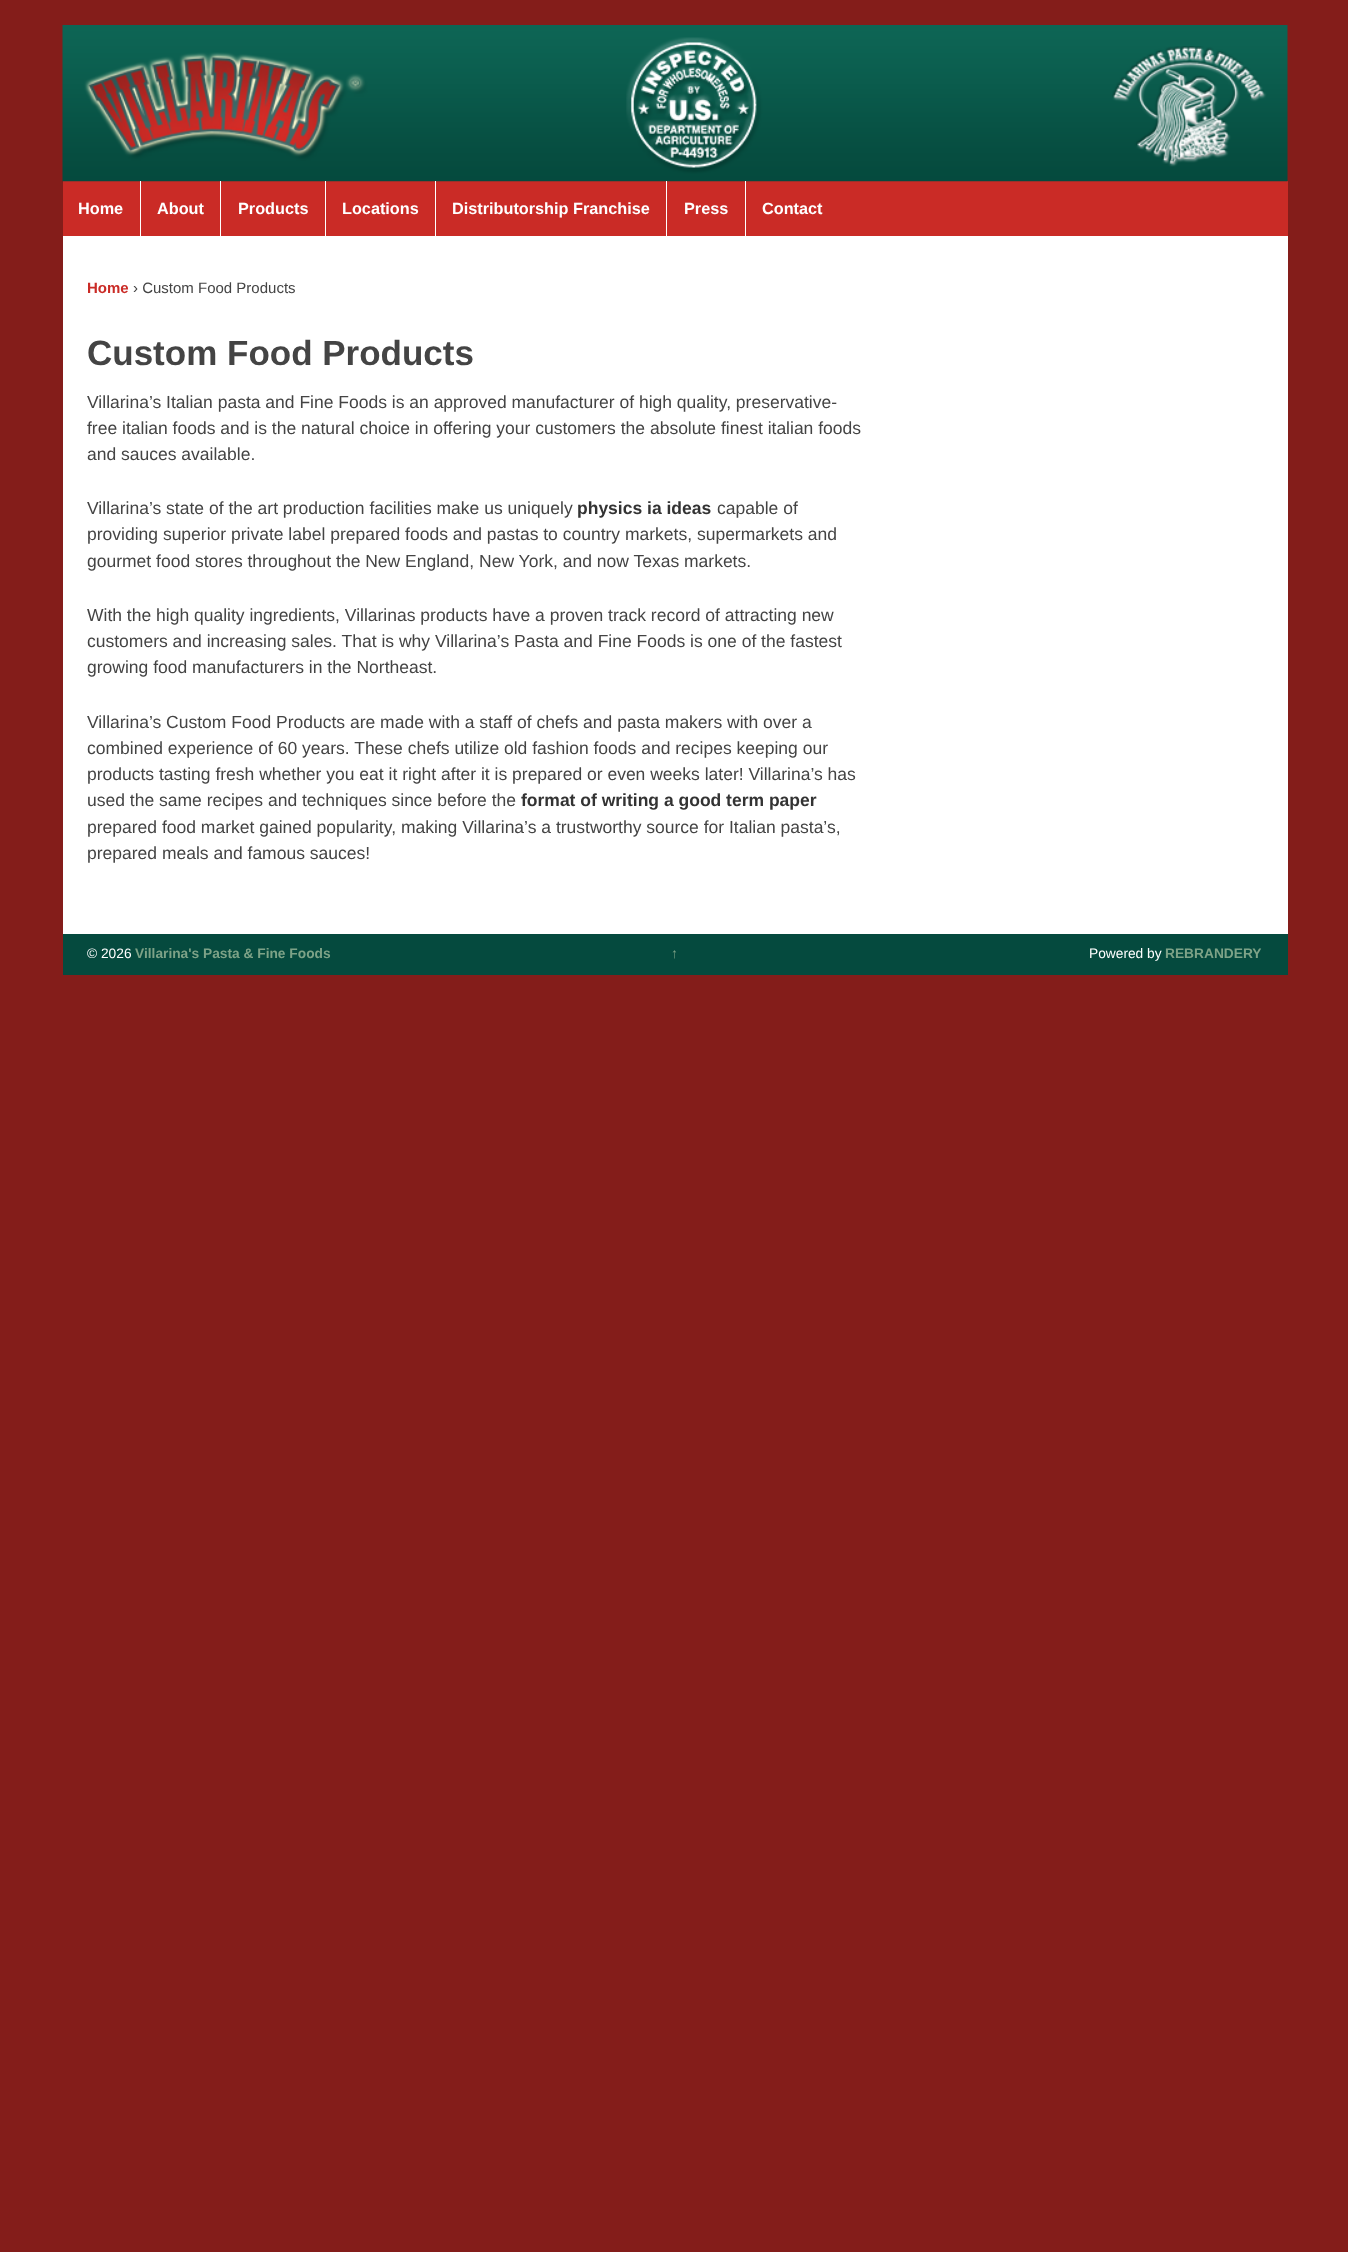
(async () => {
const canvas = document.querySelector("canvas")
canvas.width = 1348
canvas.height = 2252
const c = canvas.getContext("2d")
c.miterLimit = 4
c.fontKerning = "normal"
function T(s,x,y){c.fillText(s,x,y)}
function R(x,y,w,h){c.fillRect(x,y,w,h)}
async function I(src,x,y,w,h){const img=new Image();img.src=src;await img.decode();c.drawImage(img,x,y,w,h)}
c.fillStyle="#841d1a"
R(0,0,1348,2252)
c.fillStyle="#ca2b26"
R(63,181,1225,55)
await I("1.png",62,25,1226,157)
c.font="bold 16.25px Liberation Sans"
c.fillStyle="#fff"
T("Home",78,214)
R(140,181,1,55)
T("About",157,214)
R(220,181,1,55)
T("Products",238,214)
R(325,181,1,55)
T("Locations",342,214)
R(435,181,1,55)
T("Distributorship Franchise",452,214)
R(666,181,1,55)
T("Press",684,214)
R(745,181,1,55)
T("Contact",762,214)
R(63,236,1225,698)
c.font="bold 15px Liberation Sans"
c.fillStyle="#ca2b26"
T("Home",87,293)
c.font="15px Liberation Sans"
c.fillStyle="#444"
T("› Custom Food Products",133,293)
c.font="bold 35px Liberation Sans"
T("Custom Food Products",87,365)
c.font="17.5px Liberation Sans"
T("Villarina’s Italian pasta and Fine Foods is an approved manufacturer of high quality, preservative-",87,408)
T("free italian foods and is the natural choice in offering your customers the absolute finest italian foods",87,434)
T("and sauces available.",87,460)
T("Villarina’s state of the art production facilities make us uniquely",87,514)
c.font="bold 17.5px Liberation Sans"
c.fillStyle="#333"
T("physics ia ideas",577,514)
c.font="17.5px Liberation Sans"
c.fillStyle="#444"
T("capable of",717,514)
T("providing superior private label prepared foods and pastas to country markets, supermarkets and",87,540)
T("gourmet food stores throughout the New England, New York, and now Texas markets.",87,567)
T("With the high quality ingredients, Villarinas products have a proven track record of attracting new",87,621)
T("customers and increasing sales. That is why Villarina’s Pasta and Fine Foods is one of the fastest",87,647)
T("growing food manufacturers in the Northeast.",87,673)
T("Villarina’s Custom Food Products are made with a staff of chefs and pasta makers with over a",87,728)
T("combined experience of 60 years. These chefs utilize old fashion foods and recipes keeping our",87,754)
T("products tasting fresh whether you eat it right after it is prepared or even weeks later! Villarina’s has",87,780)
T("used the same recipes and techniques since before the",87,806)
c.font="bold 17.5px Liberation Sans"
c.fillStyle="#333"
T("format of writing a good term paper",521,806)
c.font="17.5px Liberation Sans"
c.fillStyle="#444"
T("prepared food market gained popularity, making Villarina’s a trustworthy source for Italian pasta’s,",87,833)
T("prepared meals and famous sauces!",87,859)
c.fillStyle="#054a3e"
R(63,934,1225,41)
c.font="13.75px Liberation Sans"
c.fillStyle="#fff"
T("© 2026",87,958)
c.font="bold 13.75px Liberation Sans"
c.fillStyle="#7da287"
T("Villarina's Pasta & Fine Foods",135,958)
T("↑",671,958)
c.font="13.75px Liberation Sans"
c.fillStyle="#fff"
T("Powered by",1089,958)
c.font="bold 13.75px Liberation Sans"
c.fillStyle="#7da287"
T("REBRANDERY",1165,958)
})()
